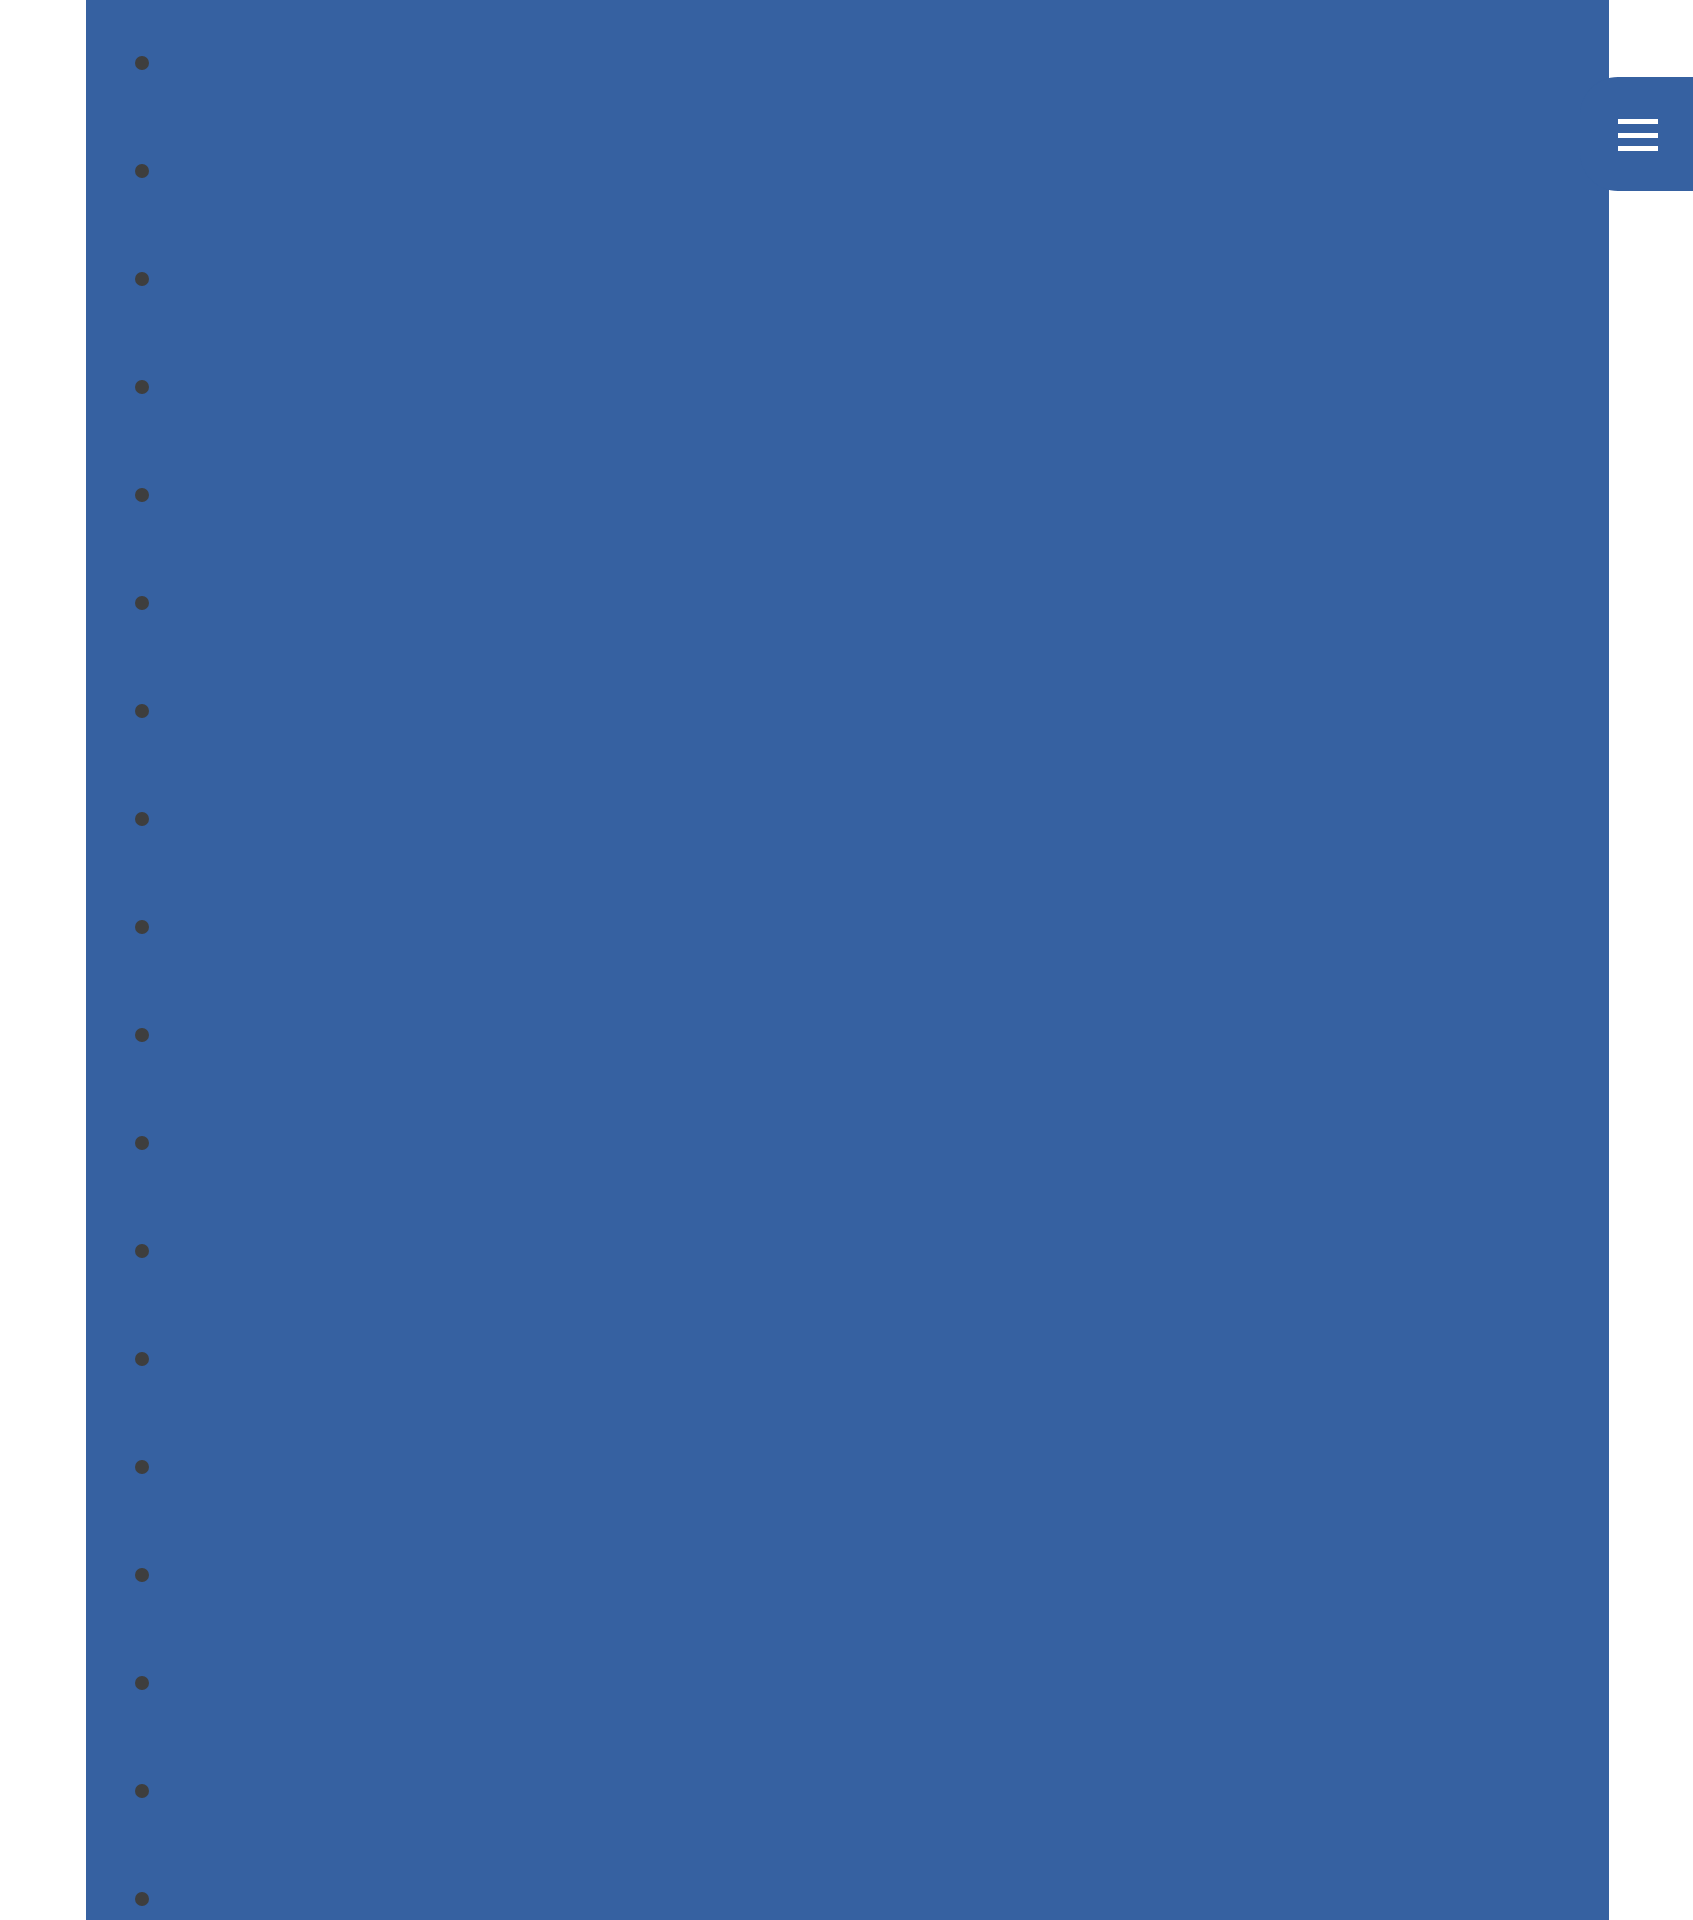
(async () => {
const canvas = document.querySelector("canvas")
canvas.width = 1693
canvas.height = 1920
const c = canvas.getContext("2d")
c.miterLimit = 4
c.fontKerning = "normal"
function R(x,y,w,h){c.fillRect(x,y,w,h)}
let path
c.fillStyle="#fff"
R(0,0,1693,1920)
c.fillStyle="#3661a1"
R(86,0,1523,1920)
c.fillStyle="#3e3e3e"
c.beginPath()
c.arc(142,63,7,0,7)
c.fill()
c.beginPath()
c.arc(142,171,7,0,7)
c.fill()
c.beginPath()
c.arc(142,279,7,0,7)
c.fill()
c.beginPath()
c.arc(142,387,7,0,7)
c.fill()
c.beginPath()
c.arc(142,495,7,0,7)
c.fill()
c.beginPath()
c.arc(142,603,7,0,7)
c.fill()
c.beginPath()
c.arc(142,711,7,0,7)
c.fill()
c.beginPath()
c.arc(142,819,7,0,7)
c.fill()
c.beginPath()
c.arc(142,927,7,0,7)
c.fill()
c.beginPath()
c.arc(142,1035,7,0,7)
c.fill()
c.beginPath()
c.arc(142,1143,7,0,7)
c.fill()
c.beginPath()
c.arc(142,1251,7,0,7)
c.fill()
c.beginPath()
c.arc(142,1359,7,0,7)
c.fill()
c.beginPath()
c.arc(142,1467,7,0,7)
c.fill()
c.beginPath()
c.arc(142,1575,7,0,7)
c.fill()
c.beginPath()
c.arc(142,1683,7,0,7)
c.fill()
c.beginPath()
c.arc(142,1791,7,0,7)
c.fill()
c.beginPath()
c.arc(142,1899,7,0,7)
c.fill()
c.fillStyle="#3661a1"
path = new Path2D("M1618 77h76v114h-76c-21 0-38-17-38-38v-38c0-21 17-38 38-38z")
c.fill(path)
c.fillStyle="#fff"
R(1618,119,40,5)
R(1618,133,40,5)
R(1618,146,40,5)
})()
